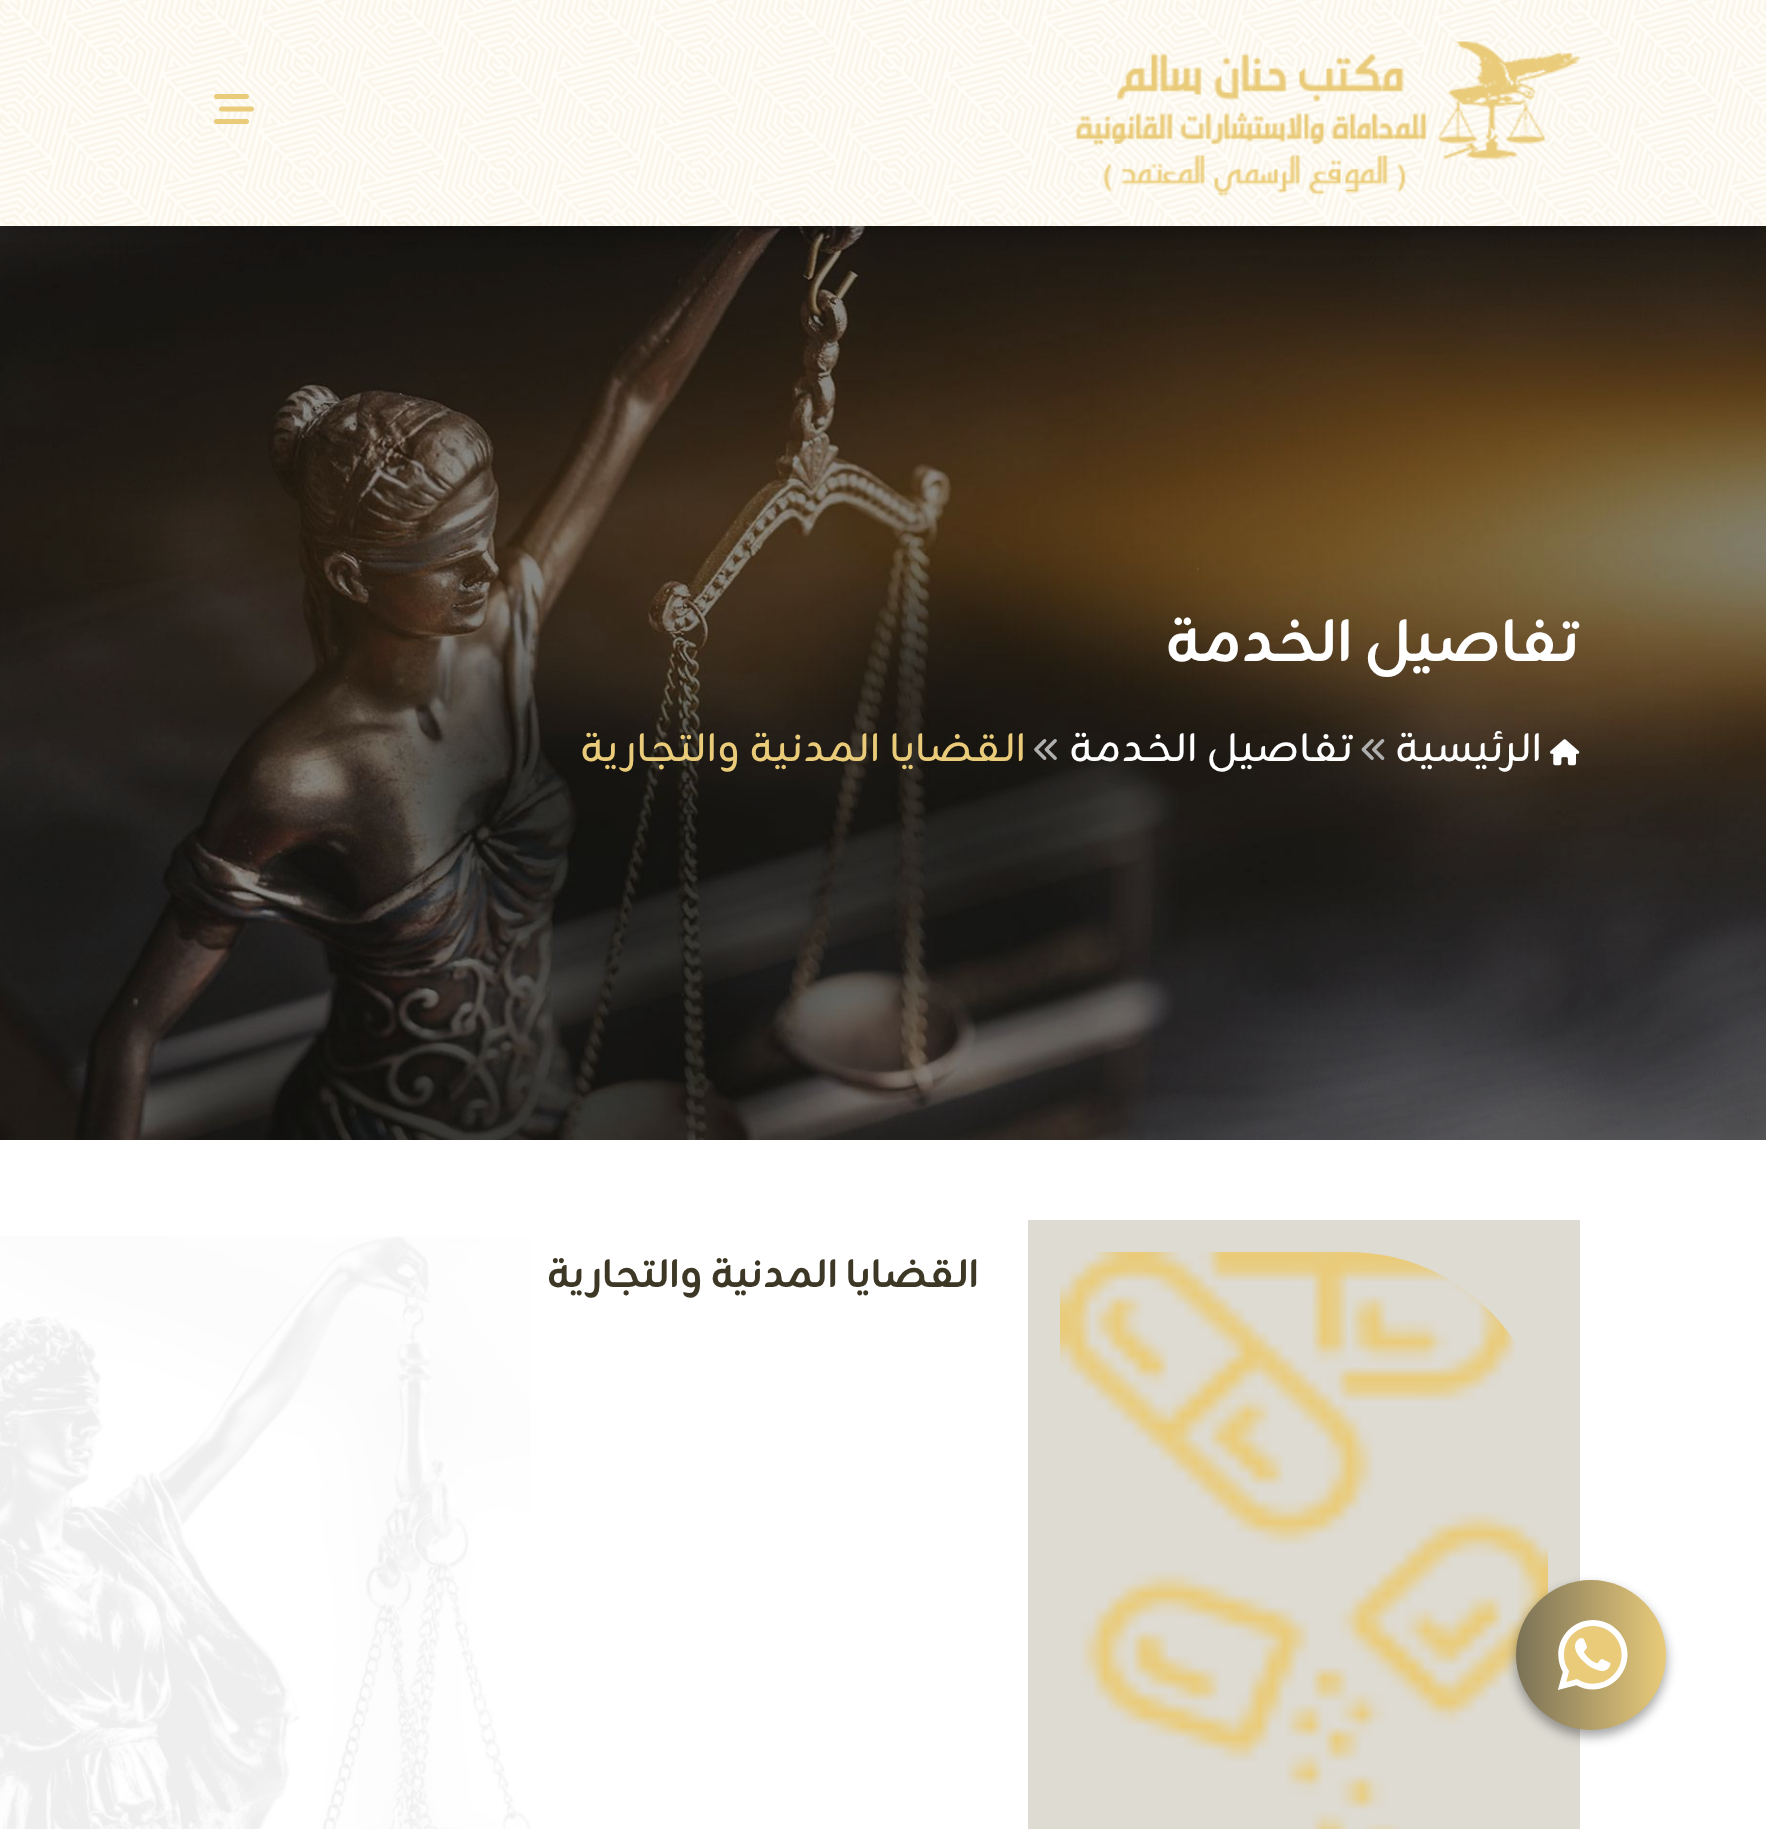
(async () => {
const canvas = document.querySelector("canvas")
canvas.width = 1766
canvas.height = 1829
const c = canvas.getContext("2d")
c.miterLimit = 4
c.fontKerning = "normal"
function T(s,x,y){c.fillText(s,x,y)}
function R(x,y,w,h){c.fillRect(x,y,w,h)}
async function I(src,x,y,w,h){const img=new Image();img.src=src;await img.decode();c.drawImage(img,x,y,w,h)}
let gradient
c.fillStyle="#fff"
R(0,0,1766,1829)
await I("4.png",0,226,1766,914)
c.fillStyle="#0000003d"
c.filter="blur(8px)"
c.beginPath()
c.rect(0,6,1766,226)
c.fill()
c.filter="none"
c.fillStyle="#fffdf7"
R(0,0,1766,226)
await I("1.png",0,0,1766,226)
await I("2.png",1075,41,505,156)
await I("3.png",214,94,40,30)
c.direction="rtl"
c.font="bold 60px Zain"
c.fillStyle="#fff"
T("تفاصيل الخدمة",1579,661)
await I("5.png",1550,739,30,27)
c.font="40px Zain"
T("الرئيسية",1542,761)
await I("6.png",1361,739,24,21)
T("تفاصيل الخدمة",1353,761)
await I("7.png",1034,739,23,21)
c.fillStyle="#e9cb7a"
T("القضايا المدنية والتجارية",1026,761)
await I("8.png",0,1236,531,593)
c.fillStyle="#dedbd3"
R(1028,1220,552,609)
await I("9.png",1060,1252,488,577)
c.font="bold 40px Zain"
c.fillStyle="#3d3726"
T("القضايا المدنية والتجارية",979,1287)
c.fillStyle="#0000003b"
c.filter="blur(6px)"
c.beginPath()
c.roundRect(1516,1586,150,150,75)
c.fill()
c.filter="none"
c.fillStyle="#00000029"
c.filter="blur(6px)"
c.beginPath()
c.roundRect(1516,1586,150,150,75)
c.fill()
c.filter="none"
gradient = c.createLinearGradient(1666,1655,1516,1655)
gradient.addColorStop(0,"#e9cb7a")
gradient.addColorStop(1,"#7a7156")
c.fillStyle = gradient
c.beginPath()
c.arc(1591,1655,75,0,7)
c.fill()
await I("10.png",1558,1620,70,70)
})()
